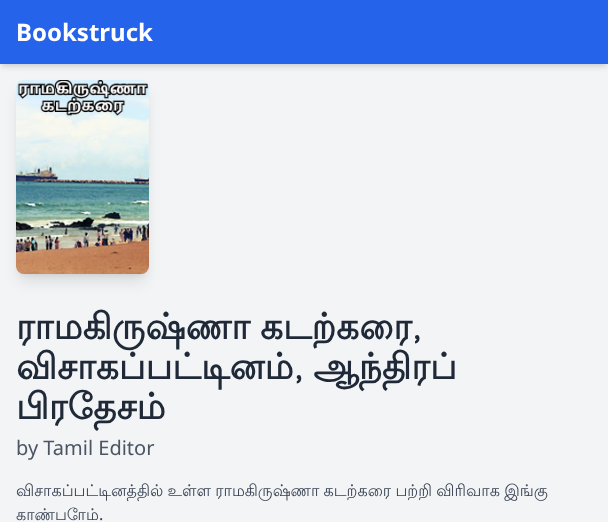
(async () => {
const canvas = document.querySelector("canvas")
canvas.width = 608
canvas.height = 522
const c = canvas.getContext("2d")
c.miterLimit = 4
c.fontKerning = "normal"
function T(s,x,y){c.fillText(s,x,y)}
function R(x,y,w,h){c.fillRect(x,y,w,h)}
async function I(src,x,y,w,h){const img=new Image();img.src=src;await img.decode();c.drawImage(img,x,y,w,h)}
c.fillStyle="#f3f4f6"
R(0,0,608,522)
c.fillStyle="#0000001a"
c.filter="blur(2px)"
c.beginPath()
c.rect(2,4,604,60)
c.fill()
c.filter="none"
c.filter="blur(3px)"
c.beginPath()
c.rect(1,5,606,62)
c.fill()
c.filter="none"
c.fillStyle="#2563eb"
R(0,0,608,64)
c.font="bold 24px Noto Sans"
c.fillStyle="#fff"
T("Bookstruck",16,41)
c.fillStyle="#0000001a"
c.filter="blur(3px)"
c.beginPath()
c.roundRect(20,88,125,186,4)
c.fill()
c.filter="none"
c.filter="blur(7.5px)"
c.beginPath()
c.roundRect(19,93,127,188,5)
c.fill()
c.filter="none"
await I("1.png",16,80,133,194)
c.wordSpacing="-1px"
c.font="bold 36px Lohit Tamil"
c.fillStyle="#1f2937"
T("ராமகிருஷ்ணா கடற்கரை,",16,339)
T("விசாகப்பட்டினம், ஆந்திரப்",16,379)
c.wordSpacing="0px"
T("பிரதேசம்",16,419)
c.font="20px Noto Sans"
c.fillStyle="#4b5563"
T("by Tamil Editor",16,455)
c.wordSpacing="-0.5px"
c.font="16px Lohit Tamil"
c.fillStyle="#374151"
T("விசாகப்பட்டினத்தில் உள்ள ராமகிருஷ்ணா கடற்கரை பற்றி விரிவாக இங்கு",16,496)
c.wordSpacing="0px"
T("காண்போம்",16,520)
c.font="16px Noto Sans"
T(".",99,520)
})()
